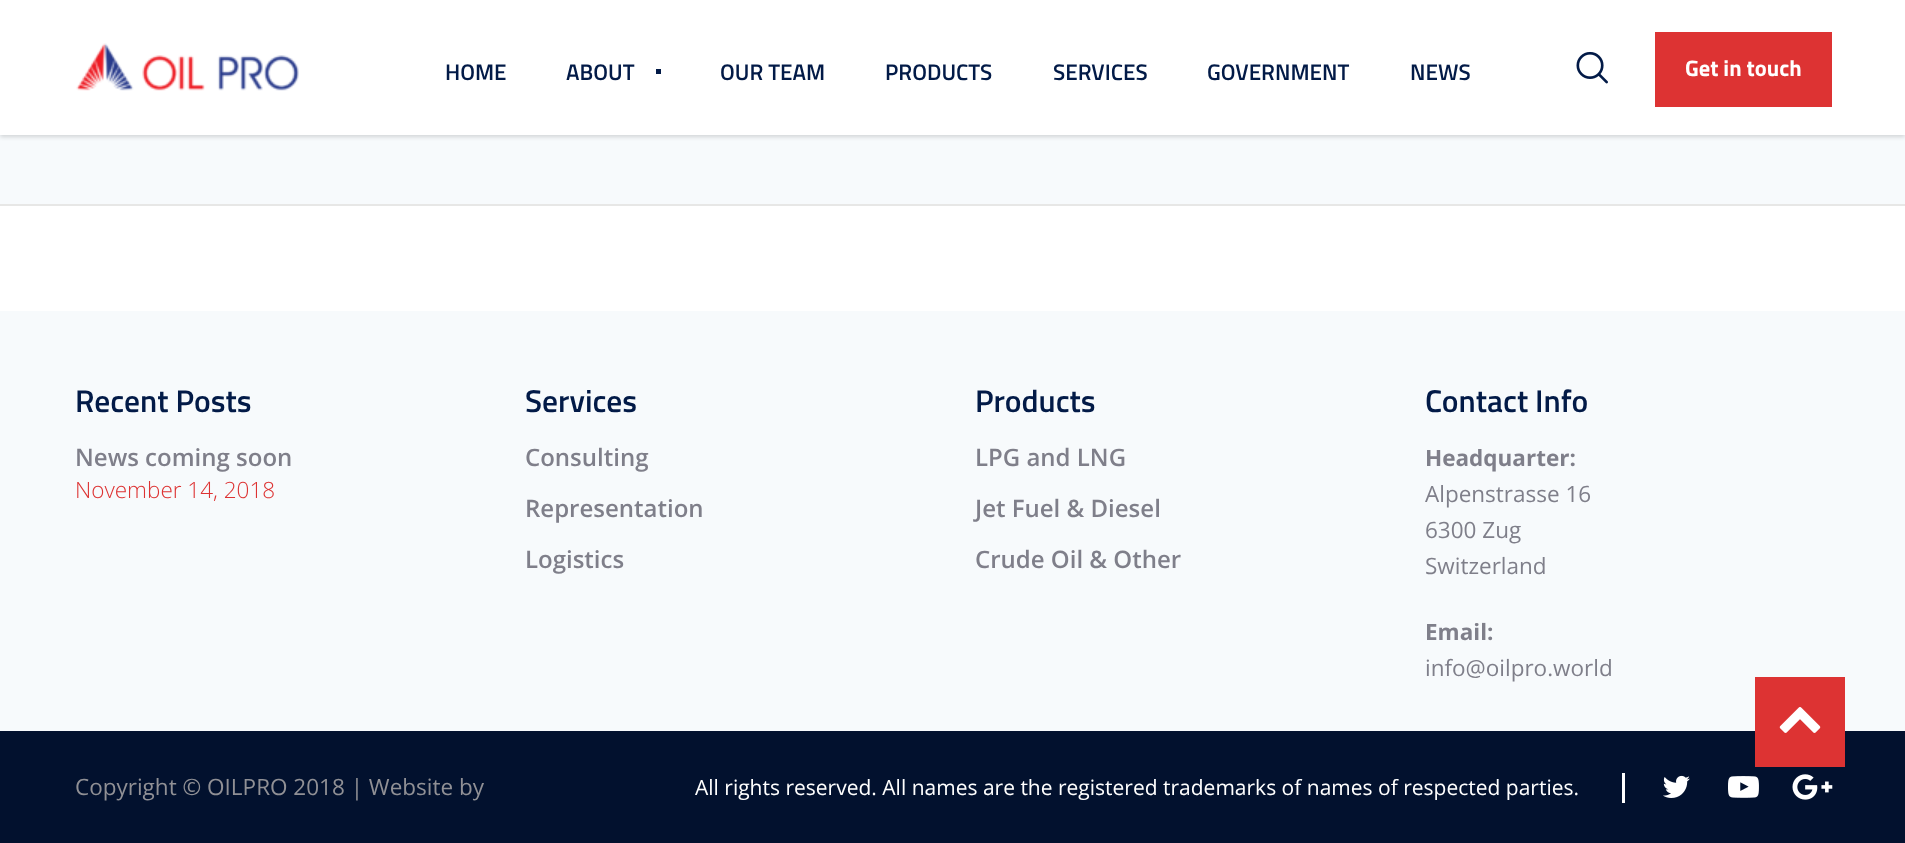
(async () => {
const canvas = document.querySelector("canvas")
canvas.width = 1905
canvas.height = 843
const c = canvas.getContext("2d")
c.miterLimit = 4
c.fontKerning = "normal"
function T(s,x,y){c.fillText(s,x,y)}
function R(x,y,w,h){c.fillRect(x,y,w,h)}
async function I(src,x,y,w,h){const img=new Image();img.src=src;await img.decode();c.drawImage(img,x,y,w,h)}
c.fillStyle="#fff"
R(0,0,1905,843)
c.fillStyle="#f7fafc"
R(0,135,1905,69)
c.fillStyle="#00000026"
c.filter="blur(2px)"
c.beginPath()
c.rect(0,2,1905,135)
c.fill()
c.filter="none"
c.fillStyle="#fff"
R(0,0,1905,135)
await I("1.png",76,43,223,48)
c.font="600 22.5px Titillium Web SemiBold"
c.fillStyle="#021a47"
T("HOME",445,80)
T("ABOUT",566,80)
R(656,69,5,5)
T("OUR TEAM",720,80)
T("PRODUCTS",885,80)
T("SERVICES",1053,80)
T("GOVERNMENT",1207,80)
T("NEWS",1410,80)
await I("2.png",1576,51,32,33)
c.fillStyle="#d33"
R(1655,32,177,75)
c.font="bold 22.5px Titillium Web"
c.fillStyle="#fff"
T("Get in touch",1685,76)
c.fillStyle="#e7e7e6"
R(0,204,1905,2)
c.fillStyle="#f7fafc"
R(0,311,1905,420)
c.font="600 31.5px Titillium Web SemiBold"
c.fillStyle="#021a47"
T("Recent Posts",75,412)
c.font="600 24px Open Sans"
c.fillStyle="#7f7f8a"
T("News coming soon",75,466)
c.font="300 22.5px Open Sans"
c.fillStyle="#d33"
T("November 14, 2018",75,498)
c.font="600 31.5px Titillium Web SemiBold"
c.fillStyle="#021a47"
T("Services",525,412)
c.font="600 24px Open Sans"
c.fillStyle="#7f7f8a"
T("Consulting",525,466)
T("Representation",525,517)
T("Logistics",525,568)
c.font="600 31.5px Titillium Web SemiBold"
c.fillStyle="#021a47"
T("Products",975,412)
c.font="600 24px Open Sans"
c.fillStyle="#7f7f8a"
T("LPG and LNG",975,466)
T("Jet Fuel & Diesel",975,517)
T("Crude Oil & Other",975,568)
c.font="600 31.5px Titillium Web SemiBold"
c.fillStyle="#021a47"
T("Contact Info",1425,412)
c.font="bold 22.5px Open Sans"
c.fillStyle="#7f7f8a"
T("Headquarter:",1425,466)
c.font="22.5px Open Sans"
T("Alpenstrasse 16",1425,502)
T("6300 Zug",1425,538)
T("Switzerland",1425,574)
c.font="bold 22.5px Open Sans"
T("Email:",1425,640)
c.font="22.5px Open Sans"
T("info@oilpro.world",1425,676)
c.fillStyle="#02112e"
R(0,731,1905,112)
c.fillStyle="#d33"
R(1755,677,90,90)
await I("3.png",1779,707,42,26)
c.fillStyle="#909095"
T("Copyright © OILPRO 2018 | Website by",75,795)
c.font="21px Open Sans"
c.fillStyle="#fff"
T("All rights reserved. All names are the registered trademarks of names of respected parties.",695,795)
R(1622,773,3,30)
await I("4.png",1663,775,27,23)
await I("5.png",1728,776,31,22)
await I("6.png",1792,774,41,26)
})()
